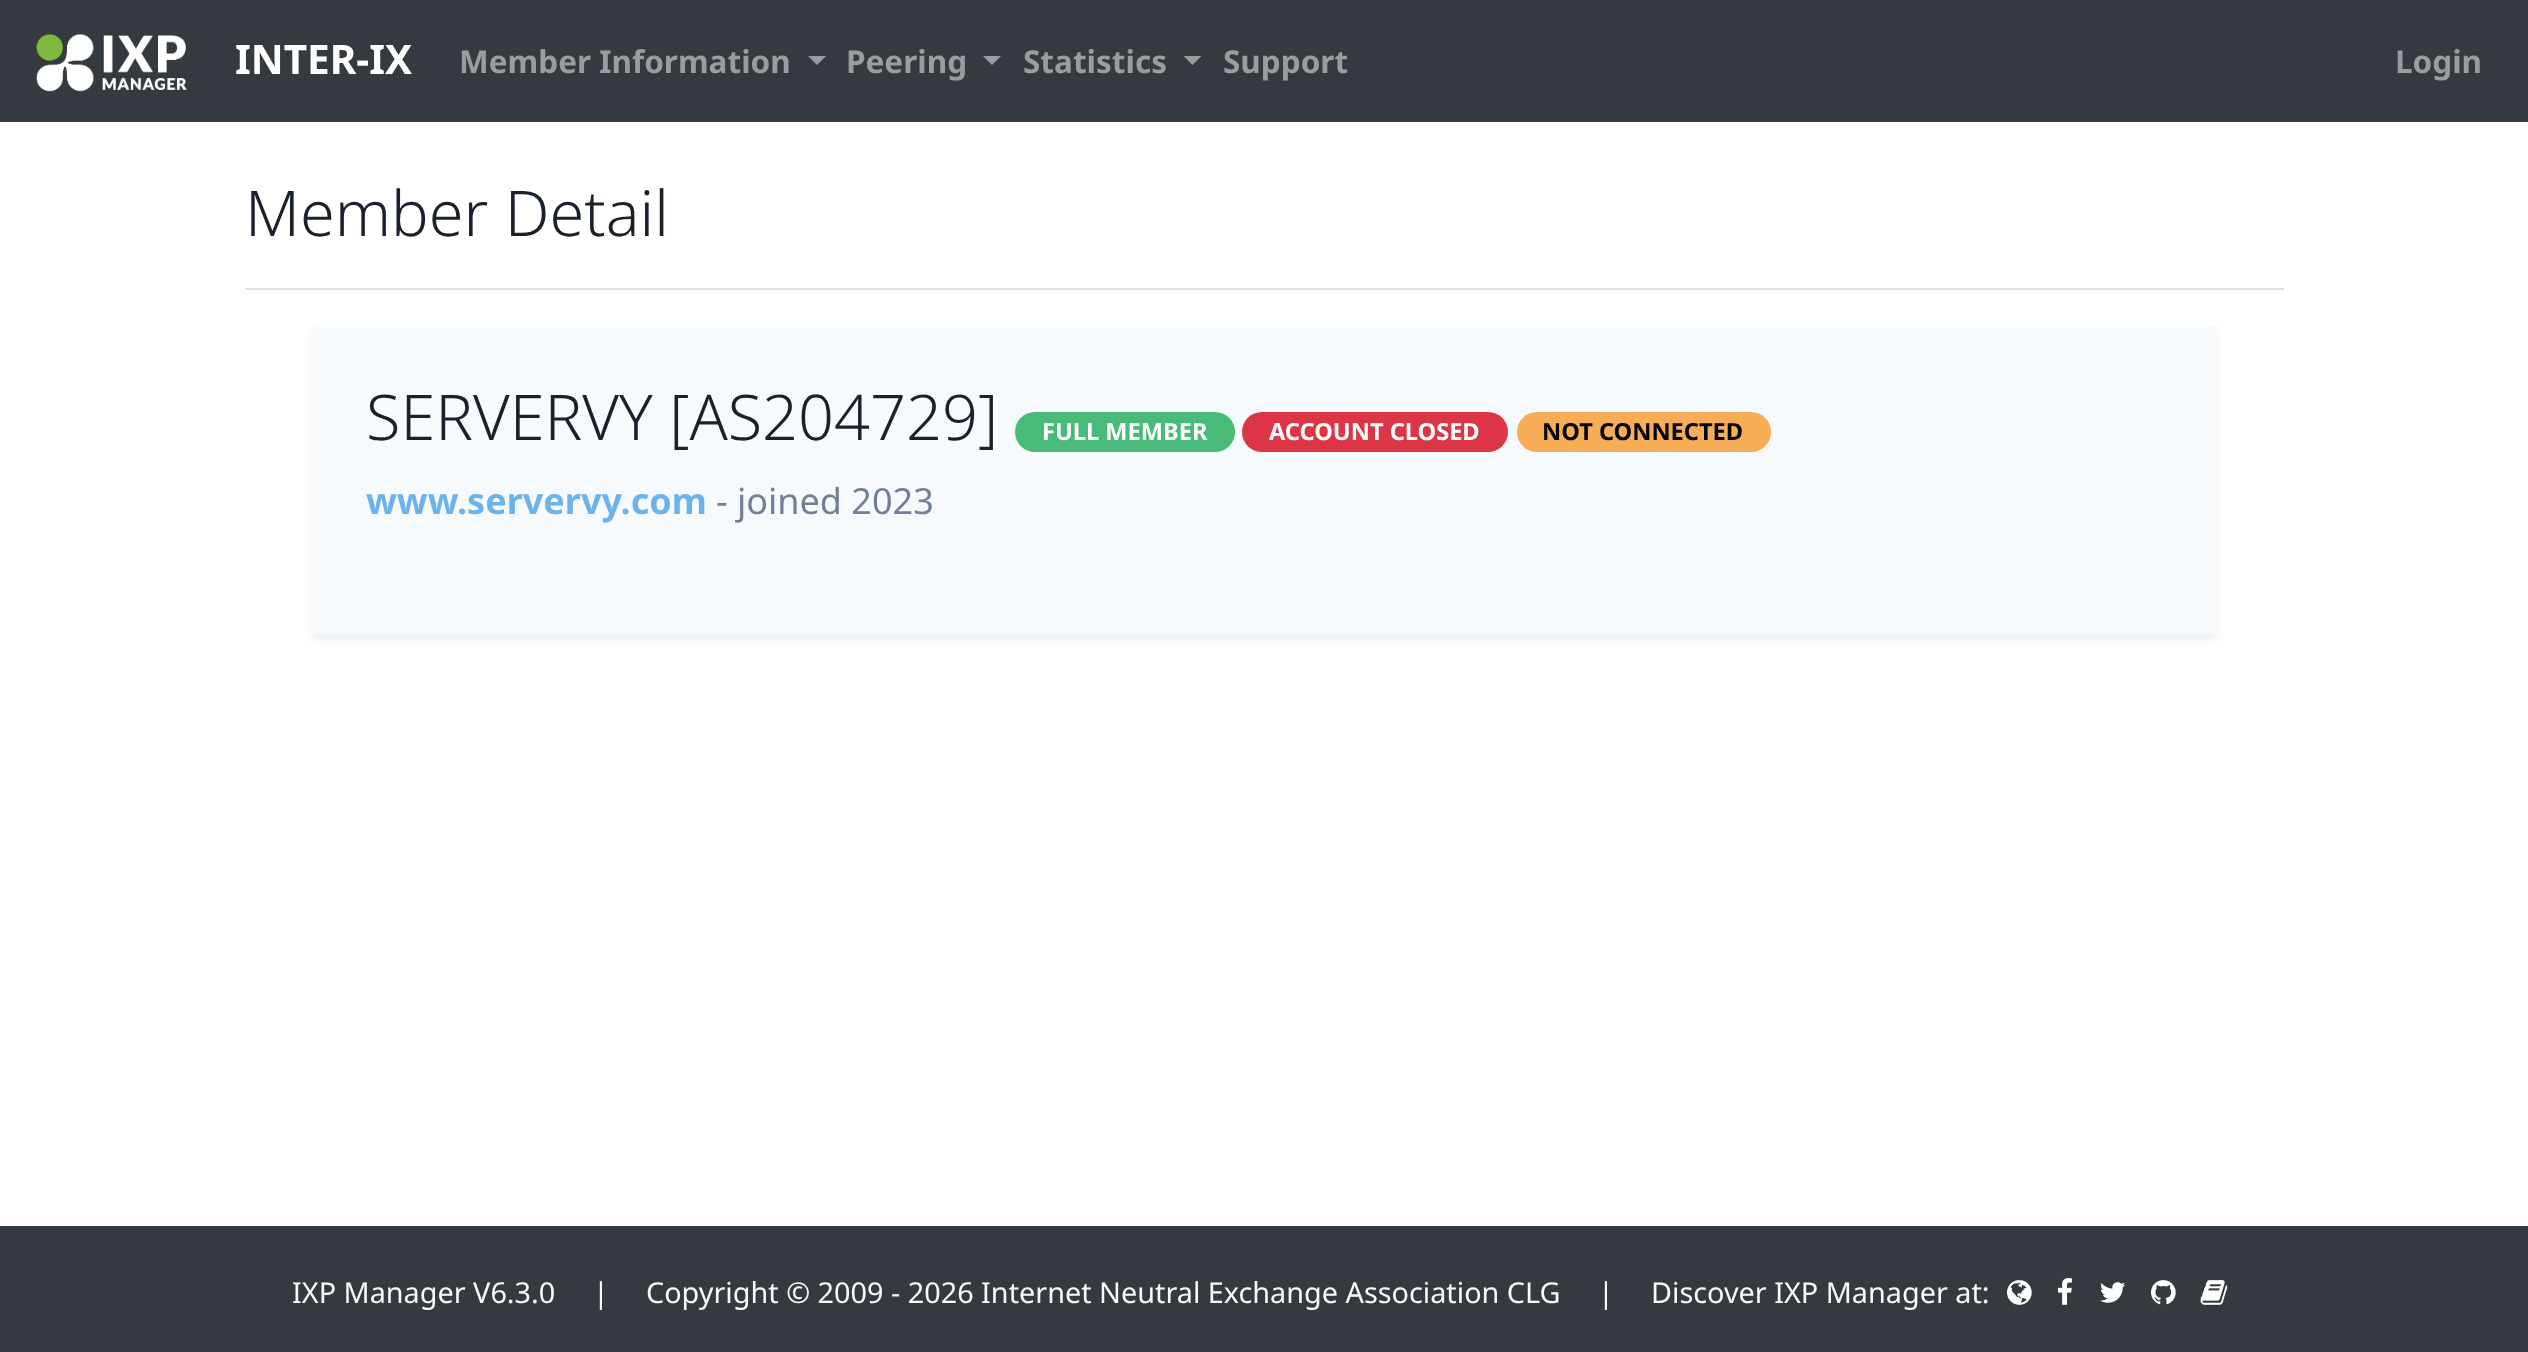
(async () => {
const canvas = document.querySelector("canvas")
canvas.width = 2528
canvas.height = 1352
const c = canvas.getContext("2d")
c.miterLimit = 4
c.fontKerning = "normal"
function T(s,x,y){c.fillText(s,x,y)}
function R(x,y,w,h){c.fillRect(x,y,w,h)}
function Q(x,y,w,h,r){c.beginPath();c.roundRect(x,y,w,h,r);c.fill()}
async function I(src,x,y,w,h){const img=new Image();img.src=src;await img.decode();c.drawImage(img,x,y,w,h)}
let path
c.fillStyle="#fff"
R(0,0,2528,1352)
c.fillStyle="#343a40"
R(0,0,2528,122)
await I("1.png",36,33,151,59)
c.font="bold 40.5px Noto Sans"
c.fillStyle="#fff"
T("INTER-IX",235,74)
c.font="bold 31.5px Noto Sans"
c.fillStyle="#9a9da0"
T("Member Information",459,73)
path = new Path2D("M808 56h18l-9 9z")
c.fill(path)
T("Peering",846,73)
path = new Path2D("M983 56h18l-9 9z")
c.fill(path)
T("Statistics",1023,73)
path = new Path2D("M1183.5 56h18l-9 9z")
c.fill(path)
T("Support",1223,73)
T("Login",2395,73)
c.fillStyle="#dee2e6"
R(245,288,2039,2)
c.font="300 63px Noto Sans"
c.fillStyle="#1a202c"
T("Member Detail",245,236)
c.fillStyle="#00000012"
c.filter="blur(4.5px)"
c.beginPath()
c.rect(313,331,1903,308)
c.fill()
c.filter="none"
c.fillStyle="#f7fafc"
R(313,326,1903,309)
c.fillStyle="#1a202c"
T("SERVERVY [AS204729]",366,440)
c.fillStyle="#48bb78"
Q(1015,412,220,40,20)
c.font="bold 23.6px Noto Sans"
c.fillStyle="#fff"
T("FULL MEMBER",1042,440)
c.fillStyle="#dc3545"
Q(1242,412,266,40,20)
c.fillStyle="#fff"
T("ACCOUNT CLOSED",1269,440)
c.fillStyle="#f6ad55"
Q(1517,412,254,40,20)
c.fillStyle="#000"
T("NOT CONNECTED",1542,440)
c.font="bold 36px Noto Sans"
c.fillStyle="#6cb2eb"
T("www.servervy.com",366,514)
c.font="36px Noto Sans"
c.fillStyle="#718096"
T("- joined 2023",716,514)
c.fillStyle="#343a40"
R(0,1226,2528,126)
c.font="28.8px Noto Sans"
c.fillStyle="#f8f9fa"
T("IXP Manager V6.3.0",292,1303)
T("|",593,1303)
T("Copyright © 2009 - 2026 Internet Neutral Exchange Association CLG",646,1303)
T("|",1598,1303)
T("Discover IXP Manager at:",1651,1303)
await I("2.png",2007,1280,25,25)
await I("3.png",2058,1278,14,27)
await I("4.png",2100,1282,26,21)
await I("5.png",2151,1280,25,25)
await I("6.png",2200,1280,28,25)
})()
